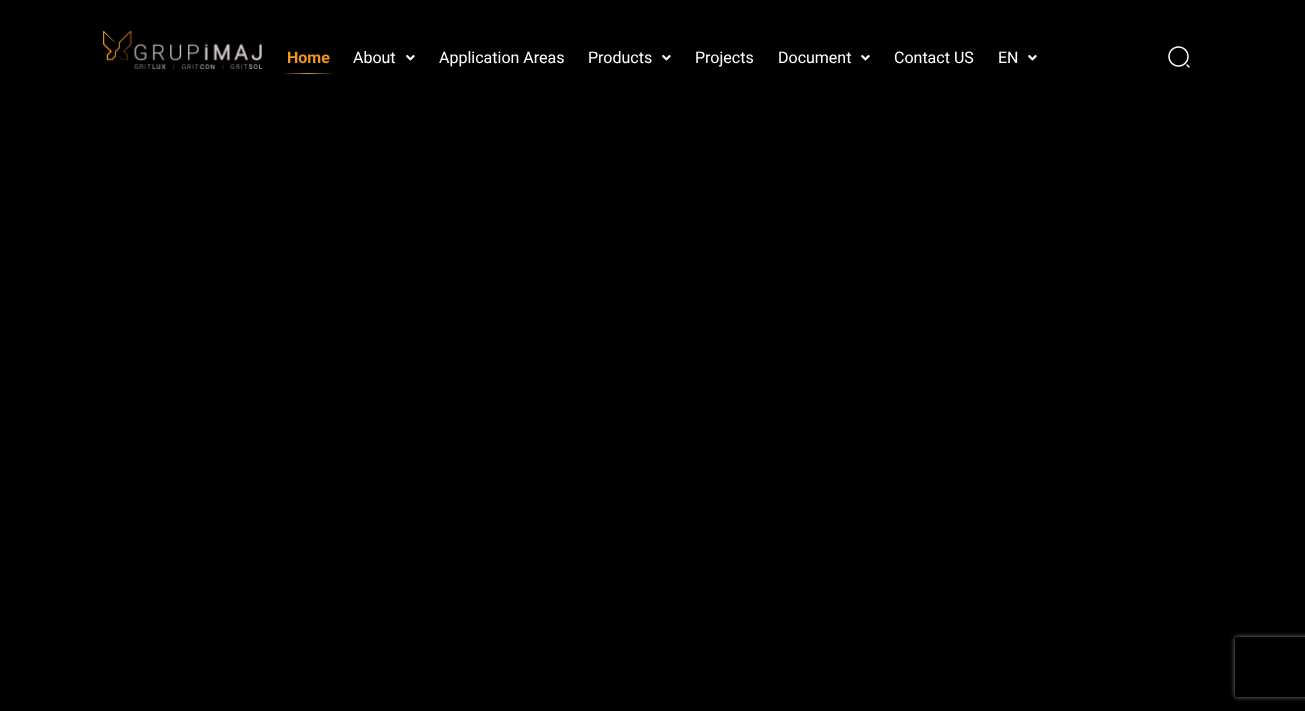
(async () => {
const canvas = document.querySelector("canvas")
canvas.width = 1305
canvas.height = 711
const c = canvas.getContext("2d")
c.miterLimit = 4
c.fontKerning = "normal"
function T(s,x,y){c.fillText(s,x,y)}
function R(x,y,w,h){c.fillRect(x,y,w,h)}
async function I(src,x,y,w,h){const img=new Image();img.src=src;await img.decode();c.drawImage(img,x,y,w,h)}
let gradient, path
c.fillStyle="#000"
R(0,0,1305,711)
await I("1.png",103,31,159,38)
c.font="bold 16px Roboto"
c.fillStyle="#f09619"
T("Home",287,63)
path = new Path2D("M282 73.5h52")
gradient = c.createLinearGradient(282,74,334,74)
gradient.addColorStop(0,"#000")
gradient.addColorStop(.5,"#f09619")
gradient.addColorStop(1,"#000")
c.strokeStyle = gradient
c.lineCap="round"
c.stroke(path)
c.font="16px Roboto"
c.fillStyle="#fff"
T("About",353,63)
await I("2.png",406,55,9,6)
T("Application Areas",439,63)
T("Products",588,63)
await I("2.png",662,55,9,6)
T("Projects",695,63)
T("Document",778,63)
await I("2.png",861,55,9,6)
T("Contact US",894,63)
T("EN",998,63)
await I("2.png",1028,55,9,6)
await I("3.png",1168,46,22,22)
c.save()
path = new Path2D("M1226 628h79v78h-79zm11 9h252c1 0 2 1 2 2v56c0 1-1 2-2 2h-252c-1 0-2-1-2-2v-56c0-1 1-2 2-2z")
c.clip(path,"evenodd")
c.fillStyle="#808080"
c.filter="blur(2.5px)"
c.beginPath()
c.roundRect(1235,637,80,60,2)
c.fill()
c.filter="none"
c.restore()
})()
